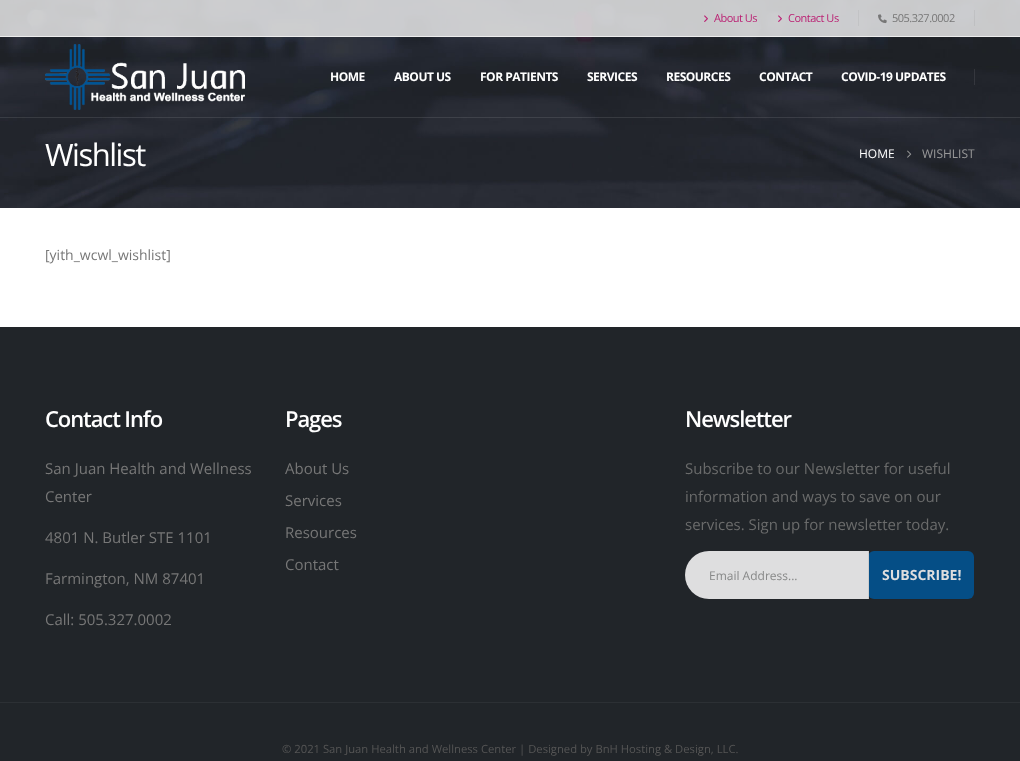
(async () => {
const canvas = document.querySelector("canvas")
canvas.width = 1020
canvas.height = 761
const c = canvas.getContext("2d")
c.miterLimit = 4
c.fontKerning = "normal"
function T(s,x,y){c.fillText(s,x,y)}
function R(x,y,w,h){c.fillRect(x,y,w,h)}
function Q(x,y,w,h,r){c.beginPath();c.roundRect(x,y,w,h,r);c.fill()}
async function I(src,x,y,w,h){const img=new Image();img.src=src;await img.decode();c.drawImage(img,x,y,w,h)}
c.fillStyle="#fff"
R(0,0,1020,761)
await I("5.png",0,0,1020,208)
c.fillStyle="#ffffff1a"
R(0,117,1020,1)
c.fillStyle="#f4f4f4cc"
R(0,0,1020,36)
c.fillStyle="#ededed"
R(0,36,1020,1)
await I("1.png",704,15,4,7)
c.letterSpacing="-0.5px"
c.font="11px Open Sans"
c.fillStyle="#ba1f72"
T("About Us",714,22)
await I("2.png",778,15,4,7)
T("Contact Us",788,22)
c.fillStyle="#c2c3c5"
R(858,10,1,16)
await I("3.png",878,14,9,10)
c.fillStyle="#777"
T("505.327.0002",892,22)
c.fillStyle="#0000000d"
R(974,10,1,16)
await I("4.png",45,44,200,66)
c.font="bold 12px Open Sans"
c.fillStyle="#fff"
T("HOME",330,81)
T("ABOUT US",394,81)
T("FOR PATIENTS",480,81)
T("SERVICES",587,81)
T("RESOURCES",666,81)
T("CONTACT",759,81)
T("COVID-19 UPDATES",841,81)
c.fillStyle="#ffffff17"
R(974,69,1,16)
c.letterSpacing="-1.5px"
c.font="31px Open Sans"
c.fillStyle="#fff"
T("Wishlist",45,166)
c.letterSpacing="0px"
c.font="12px Open Sans"
T("HOME",859,158)
await I("6.png",907,150,5,8)
c.fillStyle="#999"
T("WISHLIST",922,158)
c.font="14px Open Sans"
c.fillStyle="#777"
T("[yith_wcwl_wishlist]",45,260)
c.fillStyle="#212529"
R(0,327,1020,434)
c.letterSpacing="-1.1px"
c.font="600 22px Open Sans"
c.fillStyle="#fff"
T("Contact Info",45,427)
c.letterSpacing="0px"
c.font="15px Open Sans"
c.fillStyle="#777"
T("San Juan Health and Wellness",45,474)
T("Center",45,502)
T("4801 N. Butler STE 1101",45,543)
T("Farmington, NM 87401",45,584)
T("Call: 505.327.0002",45,625)
c.letterSpacing="-1.1px"
c.font="600 22px Open Sans"
c.fillStyle="#fff"
T("Pages",285,427)
c.letterSpacing="0px"
c.font="15px Open Sans"
c.fillStyle="#777"
T("About Us",285,474)
T("Services",285,506)
T("Resources",285,538)
T("Contact",285,570)
c.letterSpacing="-1.1px"
c.font="600 22px Open Sans"
c.fillStyle="#fff"
T("Newsletter",685,427)
c.letterSpacing="0px"
c.font="15px Open Sans"
c.fillStyle="#6a6b6b"
T("Subscribe to our Newsletter for useful",685,474)
T("information and ways to save on our",685,502)
T("services. Sign up for newsletter today.",685,530)
c.fillStyle="#054e86"
Q(868,551,106,48,6)
c.fillStyle="#dededf"
c.beginPath()
c.roundRect(685,551,184,48,[24,0,0,24])
c.fill()
c.fillStyle="#cdcdce"
R(868,551,1,48)
c.font="12px Open Sans"
c.fillStyle="#878888"
T("Email Address...",709,580)
c.font="bold 14px Open Sans"
c.fillStyle="#dededf"
T("SUBSCRIBE!",882,580)
c.fillStyle="#2c3034"
R(0,702,1020,1)
c.font="11.25px Open Sans"
c.fillStyle="#555"
T("© 2021 San Juan Health and Wellness Center | Designed by BnH Hosting & Design, LLC.",282,753)
})()
